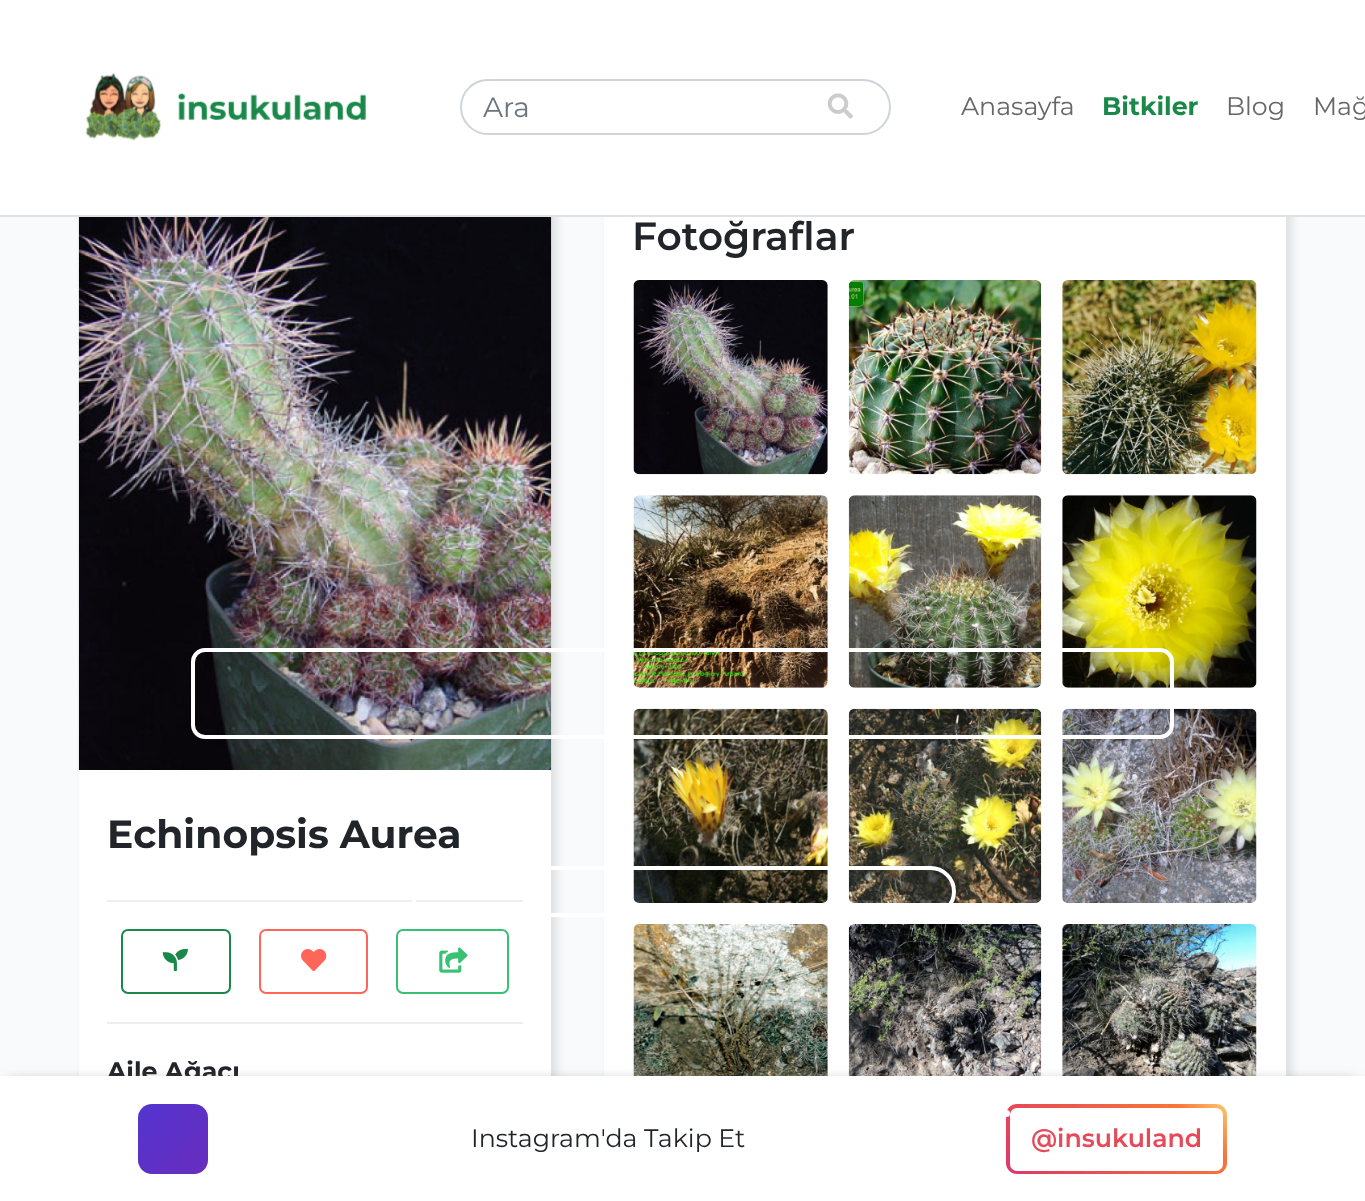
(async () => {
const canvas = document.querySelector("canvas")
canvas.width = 1365
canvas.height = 1201
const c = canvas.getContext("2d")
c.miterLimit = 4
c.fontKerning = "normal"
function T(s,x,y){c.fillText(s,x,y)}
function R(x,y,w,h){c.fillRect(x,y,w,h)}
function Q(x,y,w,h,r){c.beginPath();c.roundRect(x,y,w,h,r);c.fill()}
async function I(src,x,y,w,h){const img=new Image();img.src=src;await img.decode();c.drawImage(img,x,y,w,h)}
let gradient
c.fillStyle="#f8fafc"
R(0,0,1365,1201)
c.fillStyle="#0000001a"
c.filter="blur(4.5px)"
c.beginPath()
c.roundRect(609,184,683,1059,28)
c.fill()
c.filter="none"
c.filter="blur(4.5px)"
c.beginPath()
c.roundRect(84,184,473,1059,28)
c.fill()
c.filter="none"
c.fillStyle="#fff"
R(0,0,1365,215)
c.fillStyle="#dee2e6"
R(0,215,1365,2)
await I("1.png",85,72,281,69)
c.beginPath()
c.roundRect(461,80,429,54,27)
c.strokeStyle="#ced4da"
c.lineWidth=2
c.stroke()
c.font="28px Montserrat"
c.fillStyle="#6c757d"
T("Ara",483,117)
await I("2.png",827,93,26,26)
c.font="25.25px Montserrat"
c.fillStyle="#666"
T("Anasayfa",961,115)
c.font="bold 25.25px Montserrat"
c.fillStyle="#1a8849"
T("Bitkiler",1102,115)
c.font="25.25px Montserrat"
c.fillStyle="#666"
T("Blog",1226,115)
T("Mağ",1313,115)
c.fillStyle="#fff"
R(604,217,682,859)
c.font="600 39.25px Montserrat"
c.fillStyle="#212529"
T("Fotoğraflar",632,250)
await I("3.png",633,280,195,195)
await I("4.png",848,280,194,195)
await I("5.png",1062,280,195,195)
await I("6.png",633,495,195,193)
await I("7.png",848,495,194,193)
await I("8.png",1062,495,195,193)
await I("9.png",633,708,195,195)
await I("10.png",848,708,194,195)
await I("11.png",1062,708,195,195)
await I("12.png",633,924,195,152)
await I("13.png",848,924,194,152)
await I("14.png",1062,924,195,152)
c.fillStyle="#fff"
R(79,770,472,306)
await I("15.png",78,217,474,553)
c.fillStyle="#eee"
R(107,900,416,2)
c.font="bold 39.25px Montserrat"
c.fillStyle="#212529"
T("Echinopsis Aurea",107,848)
c.fillStyle="#eee"
R(107,1022,416,2)
c.beginPath()
c.roundRect(122,930,108,63,6)
c.strokeStyle="#1a8849"
c.stroke()
await I("16.png",162,949,26,23)
c.beginPath()
c.roundRect(260,930,107,63,6)
c.strokeStyle="#ff6558"
c.stroke()
await I("17.png",301,949,26,23)
c.beginPath()
c.roundRect(397,930,111,63,6)
c.strokeStyle="#38c172"
c.stroke()
await I("18.png",439,947,29,26)
c.font="bold 25.25px Montserrat"
c.fillStyle="#212529"
T("Aile Ağacı",107,1080)
c.fillStyle="#666"
c.filter="blur(8px)"
c.beginPath()
c.rect(9,1085,1347,109)
c.fill()
c.filter="none"
c.fillStyle="#fff"
R(0,1076,1365,125)
c.beginPath()
c.roundRect(193,650,979,87,12)
c.strokeStyle="#fff"
c.lineWidth=4
c.stroke()
c.beginPath()
c.roundRect(412,868,542,47,23.5)
c.stroke()
gradient = c.createLinearGradient(879,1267,1134,1012)
gradient.addColorStop(0,"#6559ca")
gradient.addColorStop(.3,"#bc318f")
gradient.addColorStop(.5,"#e33f5f")
gradient.addColorStop(.9,"#f77638")
gradient.addColorStop(1,"#fec66d")
c.fillStyle = gradient
Q(1006,1104,221,70,11)
c.fillStyle="#fff"
c.beginPath()
c.arc(1006.5,1113.5,3.5,0,7)
c.fill()
gradient = c.createLinearGradient(-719,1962,1066,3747)
gradient.addColorStop(0,"#5335cf")
gradient.addColorStop(.25,"#de005e")
gradient.addColorStop(.5,"#f66e48")
gradient.addColorStop(.75,"#de005e")
gradient.addColorStop(1,"#5335cf")
c.fillStyle = gradient
Q(138,1104,70,70,14)
c.font="25.25px Montserrat"
c.fillStyle="#212529"
T("Instagram'da Takip Et",471,1147)
c.fillStyle="#fff"
Q(1010,1108,213,63,7)
c.font="600 25.25px Montserrat"
c.fillStyle="#e74959"
T("@insukuland",1031,1147)
})()
